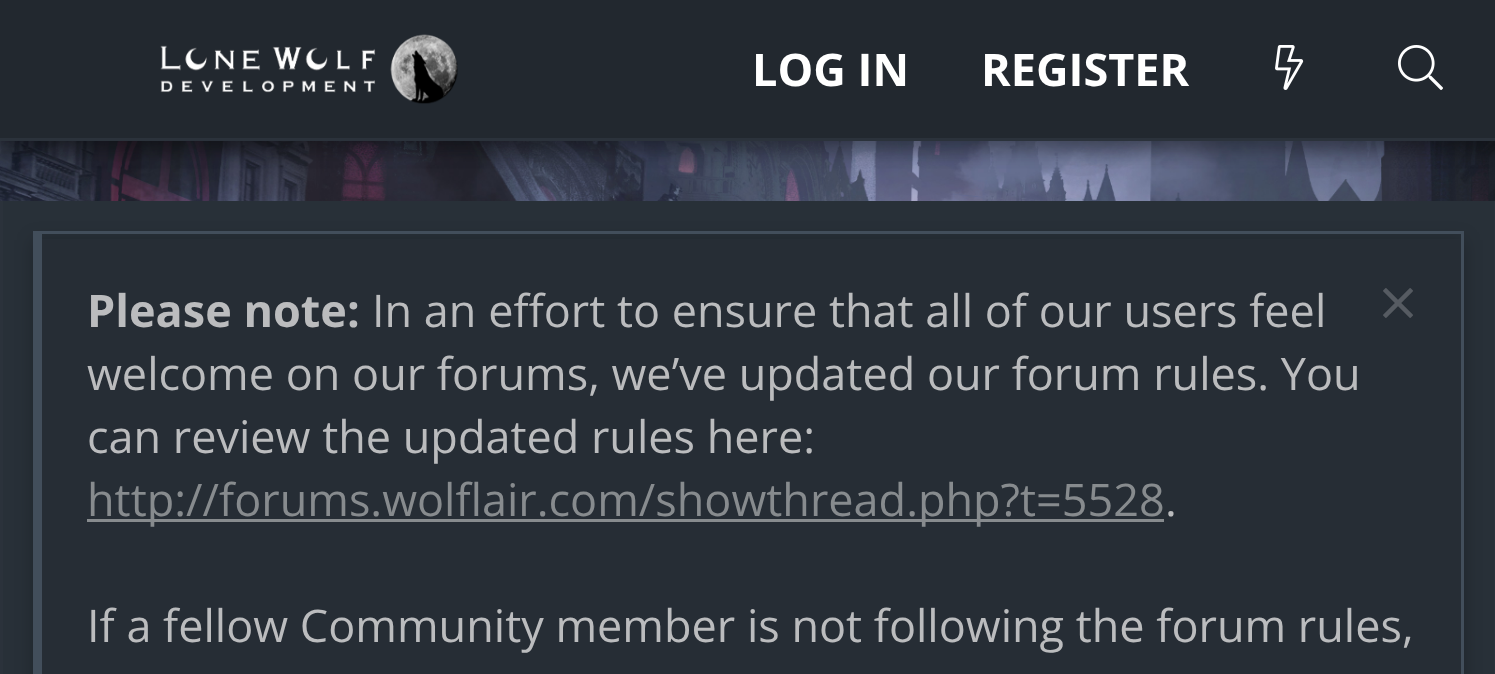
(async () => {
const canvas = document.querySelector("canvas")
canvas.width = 1495
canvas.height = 674
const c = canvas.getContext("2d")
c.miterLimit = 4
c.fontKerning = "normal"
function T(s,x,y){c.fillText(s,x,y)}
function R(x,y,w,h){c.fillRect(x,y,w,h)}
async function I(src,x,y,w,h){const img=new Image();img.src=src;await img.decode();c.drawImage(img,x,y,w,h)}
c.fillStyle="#fff"
R(0,0,1495,674)
await I("1.png",0,141,1495,60)
c.fillStyle="#0000003b"
c.filter="blur(9px)"
c.beginPath()
c.rect(0,9,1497,141)
c.fill()
c.filter="none"
c.fillStyle="#00000029"
c.filter="blur(9px)"
c.beginPath()
c.rect(0,9,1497,141)
c.fill()
c.filter="none"
c.fillStyle="#22282f"
R(0,0,1495,138)
c.fillStyle="#2b323b"
R(0,138,1495,3)
await I("2.png",160,34,298,70)
c.font="bold 45px Open Sans"
c.fillStyle="#fff"
T("LOG IN",752,86)
T("REGISTER",981,86)
await I("3.png",1275,45,29,45)
await I("4.png",1398,45,45,45)
c.fillStyle="#283038"
R(3,201,1491,473)
c.fillStyle="#2b323b"
R(1494,201,1,473)
R(0,201,3,473)
c.fillStyle="#0000003b"
c.filter="blur(9px)"
c.beginPath()
c.rect(33,240,1431,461)
c.fill()
c.filter="none"
c.fillStyle="#262d35"
R(42,239,1419,435)
c.fillStyle="#424e5b"
R(42,231,1422,3)
R(1461,231,3,443)
R(33,231,9,443)
c.fillStyle="#bbbcbe"
T("Please note:",87,327)
c.font="45px Open Sans"
T("In an effort to ensure that all of our users feel",372,327)
await I("5.png",1383,288,30,30)
T("welcome on our forums, we’ve updated our forum rules. You",87,390)
T("can review the updated rules here:",87,453)
c.fillStyle="#878b8e"
R(87,519,1077,3)
T("http://forums.wolflair.com/showthread.php?t=5528",87,516)
c.fillStyle="#bbbcbe"
T(".",1165,516)
T("If a fellow Community member is not following the forum rules,",87,642)
})()
